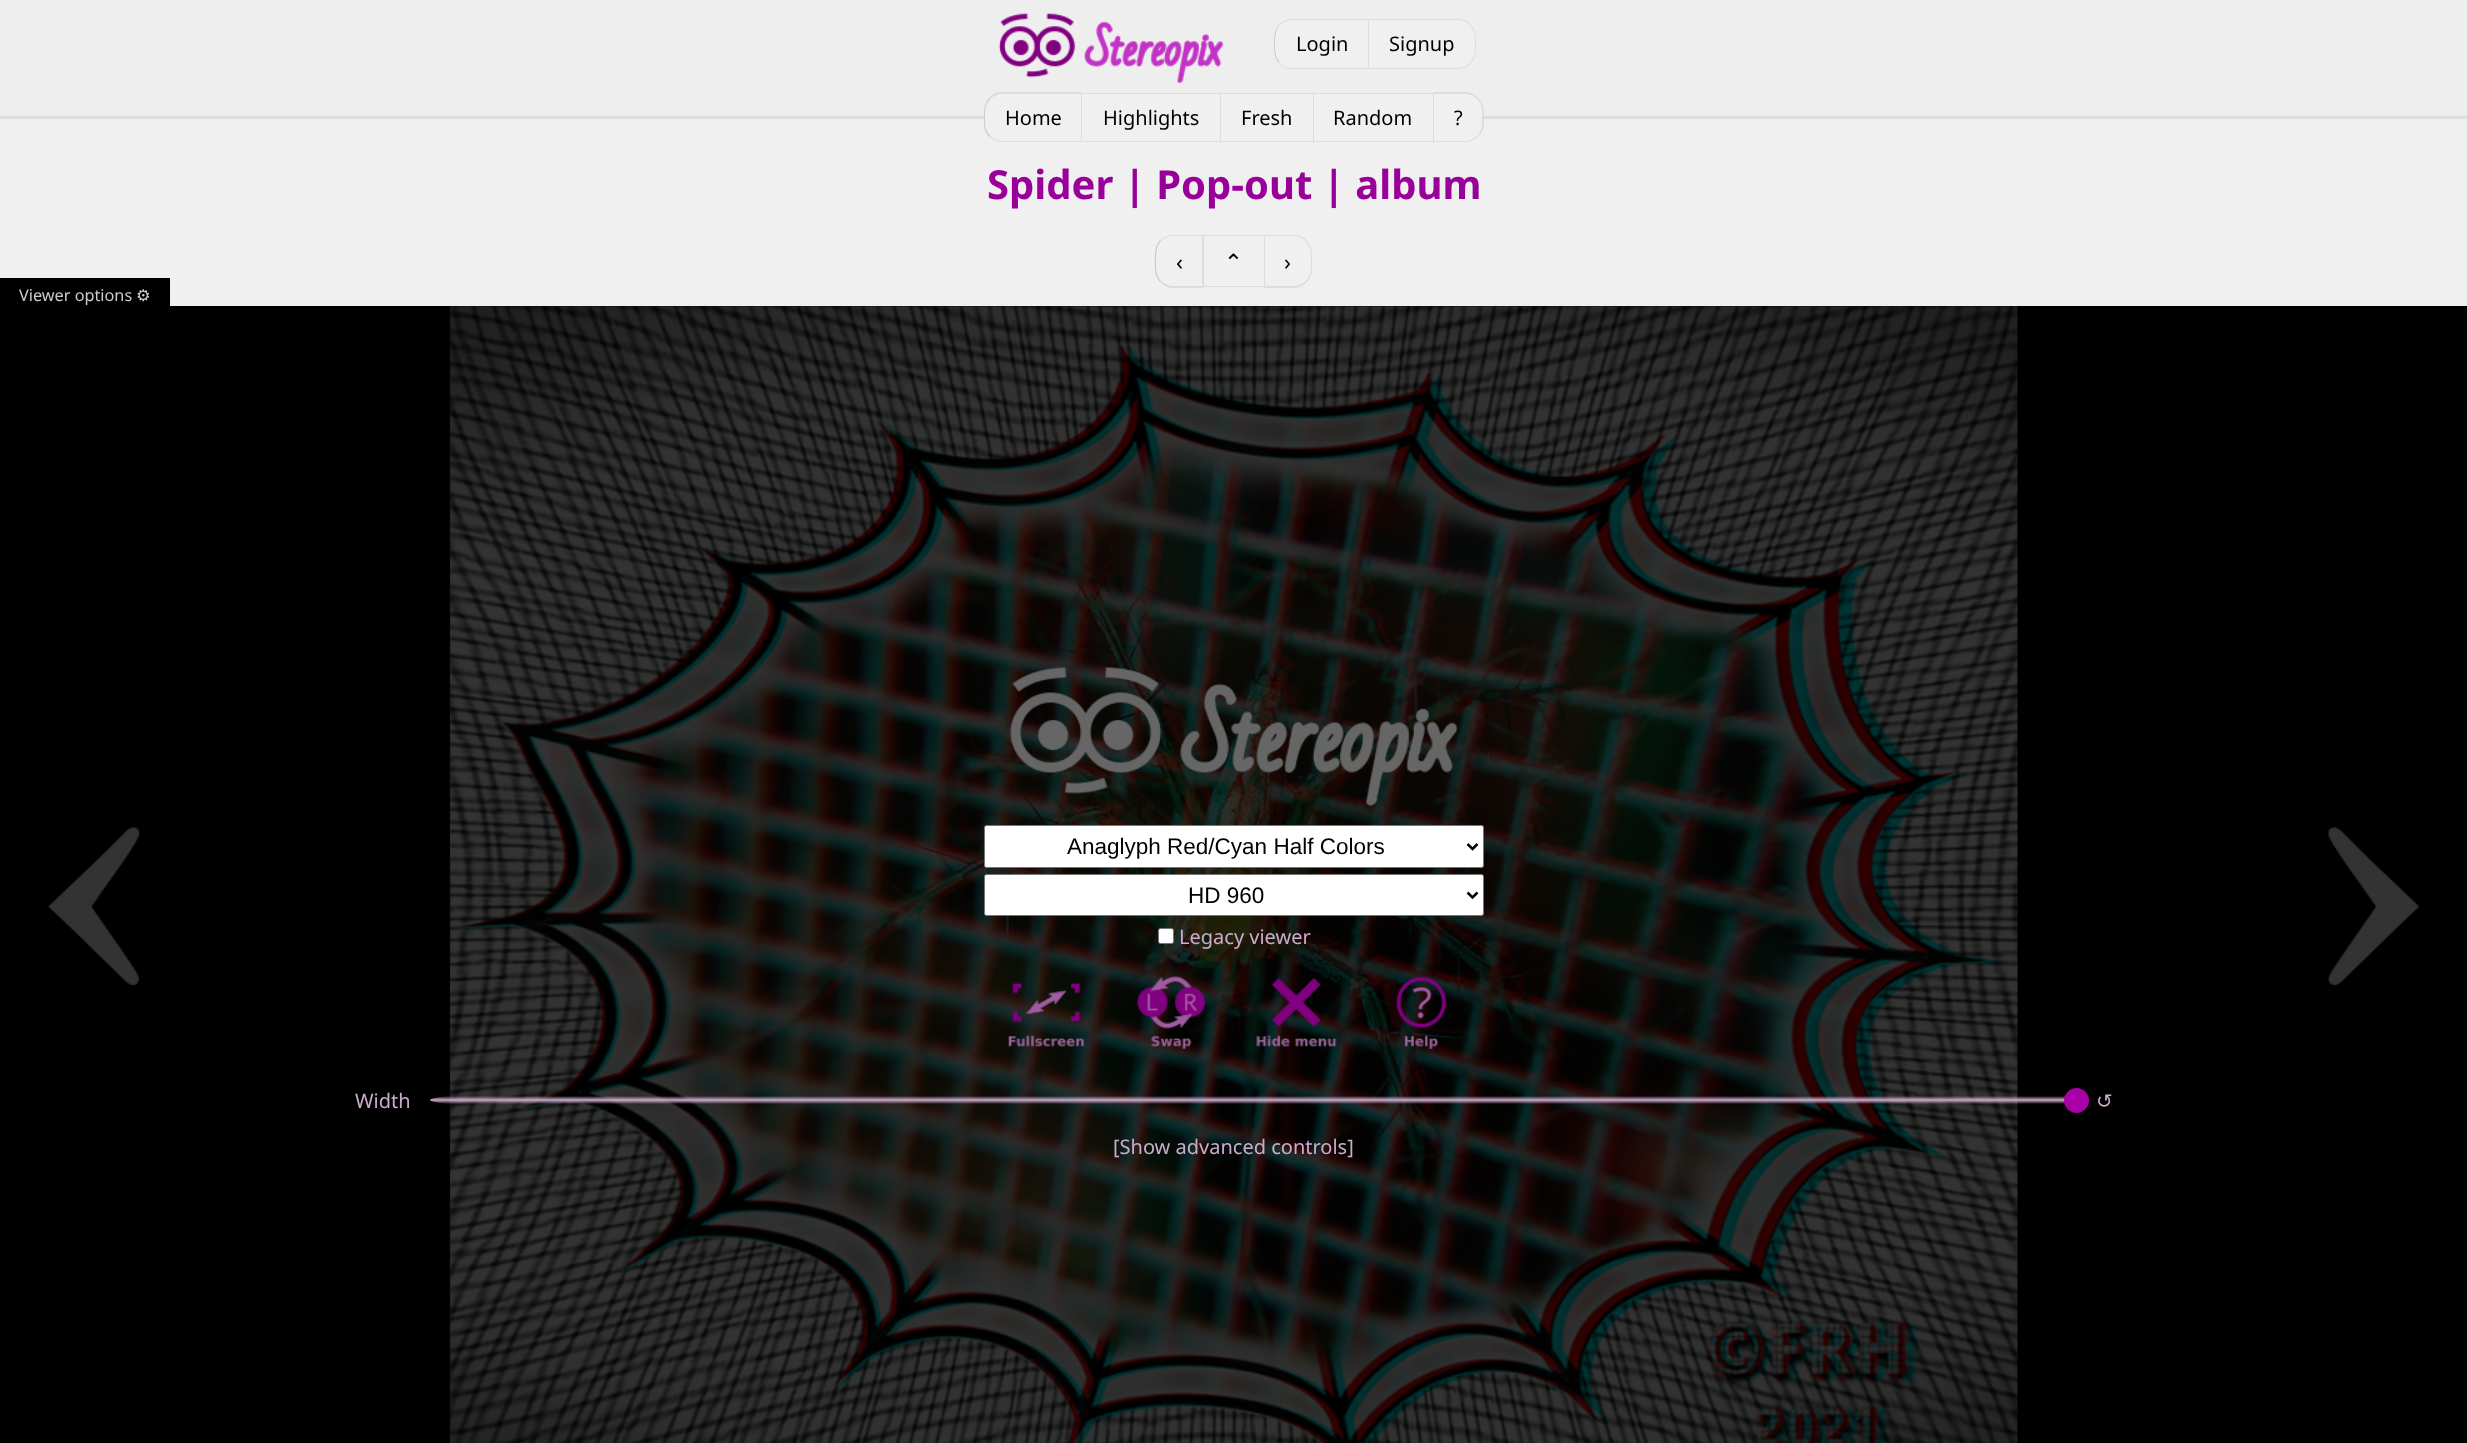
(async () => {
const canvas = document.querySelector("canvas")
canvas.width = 2467
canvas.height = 1443
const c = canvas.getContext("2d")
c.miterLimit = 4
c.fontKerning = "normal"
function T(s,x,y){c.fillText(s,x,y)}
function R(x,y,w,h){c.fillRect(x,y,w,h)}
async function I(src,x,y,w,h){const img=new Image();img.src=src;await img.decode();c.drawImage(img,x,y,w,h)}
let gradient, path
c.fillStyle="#f0f0f1"
R(0,0,2467,1443)
c.fillStyle="#eee"
R(0,0,2467,116)
c.fillStyle="#ddd"
R(0,116,2467,3)
await I("1.png",998,13,226,71)
c.fillStyle="#f0f0f1"
c.beginPath()
c.roundRect(1274,19,95,50,[19,0,0,19])
c.fill()
c.fillStyle="#ddd"
path = new Path2D("M1292 19c-5 0-9 2-13 5l1 1c3-3 8-5 12-5h76v-1z")
c.fill(path)
path = new Path2D("M1369 19l-1 1v48l1 1z")
c.fill(path)
path = new Path2D("M1369 69h-80c-4-1-7-3-10-6h1c3 3 7 5 12 5h76z")
c.fill(path)
c.fillStyle="#ccc"
path = new Path2D("M1279.5 24.5c-5.5 5.5-5.5 12.5-5.5 19.5c0 7.5 0 13.5 5 19l1-.5c-5-5.5-5-11.5-5-18.5c0-7 0-13.5 5-19z")
c.fill(path)
c.font="20px Noto Sans"
c.fillStyle="#000"
T("Login",1296,51)
c.fillStyle="#f0f0f1"
c.beginPath()
c.roundRect(1369,19,107,50,[0,19,19,0])
c.fill()
c.fillStyle="#ddd"
path = new Path2D("M1369 19h89c10 0 18 8 18 19v12c0 10-8 19-18 19h-89zm0 1h89c9 0 17 8 17 18v12c0 10-8 18-17 18h-89z")
c.fill(path,"evenodd")
c.fillStyle="#000"
T("Signup",1389,51)
c.fillStyle="#f0f0f1"
c.beginPath()
c.roundRect(984,93,99,50,[19,0,0,19])
c.fill()
c.fillStyle="#ddd"
path = new Path2D("M1002 94c-4 0-9 2-12 5l-1-1c2-3 6-5 9-6h84l-1 2z")
c.fill(path)
path = new Path2D("M1082 93v49l-1-1v-47z")
c.fill(path)
path = new Path2D("M1082 142l-1-1h-79c-4 0-9-2-12-5l-1 1c4 3 8 5 13 5z")
c.fill(path)
c.fillStyle="#ccc"
path = new Path2D("M989.5 137c-6-5.5-5.5-12-5.5-19.5c0-7.5 0-13.5 5-19.5l1.5 1c-6 5.5-5.5 11.5-5.5 18.5c0 7-.5 13 5.5 18.5z")
c.fill(path)
c.fillStyle="#000"
T("Home",1005,125)
c.fillStyle="#f0f0f1"
R(1083,94,137,25)
c.fillStyle="#ddd"
R(1083,93,351,1)
R(1220,93,1,50)
R(1083,141,138,1)
c.fillStyle="#000"
T("Highlights",1103,125)
c.fillStyle="#f0f0f1"
R(1221,94,92,25)
c.fillStyle="#ddd"
R(1313,93,1,50)
R(1221,141,93,1)
c.fillStyle="#000"
T("Fresh",1241,125)
c.fillStyle="#f0f0f1"
R(1314,94,119,25)
c.fillStyle="#ddd"
R(1433,93,1,50)
R(1314,141,120,1)
c.fillStyle="#000"
T("Random",1333,125)
c.fillStyle="#f0f0f1"
c.beginPath()
c.roundRect(1434,93,50,50,[0,19,19,0])
c.fill()
c.fillStyle="#ddd"
path = new Path2D("M1434 92h31c10 0 19 9 19 19v13c0 10-9 18-19 18h-31zm0 2h31c10 0 17 8 17 17v13c0 9-7 17-17 17h-31z")
c.fill(path,"evenodd")
c.fillStyle="#000"
T("?",1454,125)
c.font="bold 40px Noto Sans"
c.fillStyle="#909"
T("Spider | Pop-out | album",987,199)
c.fillStyle="#ddd"
R(1204,235,61,1)
R(1264,235,1,53)
R(1204,286,61,1)
c.font="22.5px DejaVu Sans"
c.fillStyle="#000"
T("⌃",1224,270)
c.fillStyle="#ddd"
path = new Path2D("M1174 235c-6 0-10 2-14 5l1 1c3-3 8-5 13-5h28v1l2-2z")
c.fill(path)
path = new Path2D("M1204 235l-2 2v49l2 2z")
c.fill(path)
path = new Path2D("M1204 288h-34c-4-1-7-3-10-6l1-1c4 3 8 5 13 5h28z")
c.fill(path)
c.fillStyle="#ccc"
path = new Path2D("M1155 254c0 10-2 21 5 28l1-1c-5-5-5-12-5-19c0-8 0-15 5-21l-1-1c-3 4-5 8-5 14z")
c.fill(path)
c.font="22.5px Noto Sans"
c.fillStyle="#000"
T("‹",1176,270)
c.fillStyle="#ddd"
path = new Path2D("M1265 235h29c10 0 18 8 18 19v15c0 10-8 19-18 19h-29zm0 1h29c9 0 17 8 17 18v15c0 9-8 17-17 17h-29z")
c.fill(path,"evenodd")
c.fillStyle="#000"
T("›",1284,270)
R(0,306,2467,1137)
R(0,278,170,28)
c.font="16.25px Noto Sans"
c.fillStyle="#ccc"
T("Viewer options",19,301)
c.font="16.25px DejaVu Sans"
T("⚙",136,301)
await I("2.png",449,306,1569,1137)
await I("3.png",48,827,92,159)
await I("4.png",1010,667,448,140)
c.fillStyle="#fff"
c.beginPath()
c.roundRect(984.5,825.5,499,42,2)
c.fill()
c.strokeStyle="#767676"
c.stroke()
path = new Path2D("M1467.5 844l5 5l5-5")
c.strokeStyle="#000"
c.lineWidth=2.5
c.stroke(path)
c.font="22.5px Liberation Sans"
c.fillStyle="#000"
T("Anaglyph Red/Cyan Half Colors",1067,854)
c.fillStyle="#fff"
c.beginPath()
c.roundRect(984.5,874.5,499,41,2)
c.fill()
c.strokeStyle="#767676"
c.lineWidth=1
c.stroke()
path = new Path2D("M1467.5 892.5l5 5l5-5")
c.strokeStyle="#000"
c.lineWidth=2.5
c.stroke(path)
c.fillStyle="#000"
T("HD 960",1188,903)
c.fillStyle="#fff"
c.beginPath()
c.roundRect(1158.5,928.5,15,15,2)
c.fill()
c.strokeStyle="#767676"
c.lineWidth=1
c.stroke()
c.font="20px Noto Sans"
c.fillStyle="#cac"
T("Legacy viewer",1179,944)
await I("5.png",1008,982,76,65)
await I("6.png",1137,976,69,73)
await I("7.png",1256,977,81,70)
await I("8.png",1396,976,51,73)
T("Width",355,1108)
gradient = c.createLinearGradient(1259,1096,1259,1104)
gradient.addColorStop(0,"#ccaacc00")
gradient.addColorStop(.5,"#cac")
gradient.addColorStop(1,"#ccaacc00")
c.fillStyle = gradient
path = new Path2D("M447 1104c-11-1-17-3-17-4c0-1 6-3 17-4h1625c11 1 17 3 17 4c0 1-6 3-17 4z")
c.fill(path)
c.fillStyle="#a0a"
c.beginPath()
c.arc(2076.5,1100.5,12.5,0,7)
c.fill()
c.font="20px DejaVu Sans"
c.fillStyle="#cac"
T("↺",2096,1108)
c.font="20px Noto Sans"
T("[Show advanced controls]",1113,1154)
await I("9.png",2327,827,92,159)
})()
